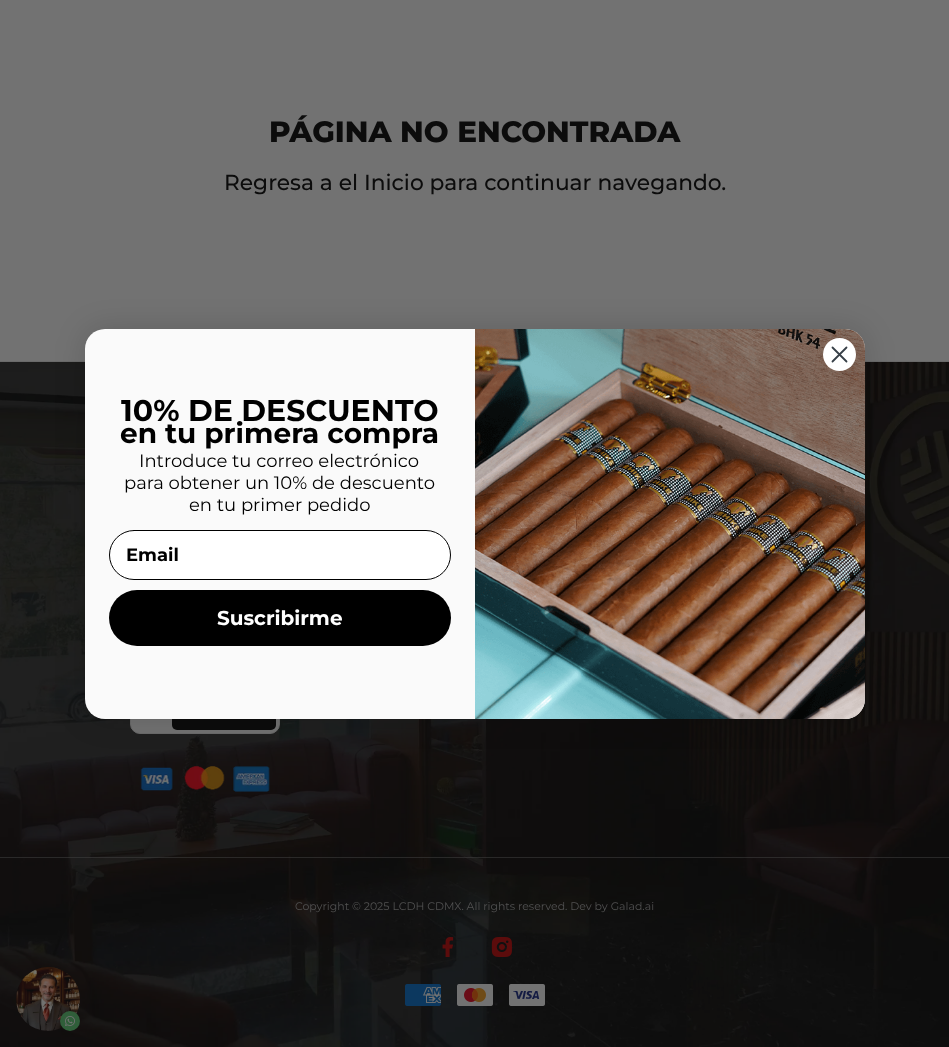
(async () => {
const canvas = document.querySelector("canvas")
canvas.width = 949
canvas.height = 1047
const c = canvas.getContext("2d")
c.miterLimit = 4
c.fontKerning = "normal"
function T(s,x,y){c.fillText(s,x,y)}
function R(x,y,w,h){c.fillRect(x,y,w,h)}
function Q(x,y,w,h,r){c.beginPath();c.roundRect(x,y,w,h,r);c.fill()}
async function I(src,x,y,w,h){const img=new Image();img.src=src;await img.decode();c.drawImage(img,x,y,w,h)}
let path
c.fillStyle="#727272"
R(0,0,949,1047)
c.font="800 29.4px Montserrat"
c.fillStyle="#0c0c0c"
T("PÁGINA NO ENCONTRADA",269,142)
c.font="500 21.75px Montserrat"
T("Regresa a el Inicio para continuar navegando.",224,190)
await I("2.png",0,362,949,685)
c.fillStyle="#6a6a6a"
R(0,361,949,1)
c.fillStyle="#727272"
c.beginPath()
c.roundRect(130.5,694.5,149,39,9.5)
c.fill()
c.strokeStyle="#6a6a6a"
c.stroke()
c.fillStyle="#0c0c0c"
Q(172,698,104,32,5)
c.fillStyle="#00000026"
c.filter="blur(15px)"
c.beginPath()
c.roundRect(85,329,780,390,20)
c.fill()
c.filter="none"
c.fillStyle="#fafafa"
Q(85,329,780,390,20)
await I("1.png",475,329,390,390)
c.fillStyle="#fff"
c.beginPath()
c.arc(839.5,354.5,16.5,0,7)
c.fill()
path = new Path2D("M832.5 347.5l14 14m-14 0l14-14z")
c.strokeStyle="#373f47"
c.lineWidth=1.8
c.lineCap="round"
c.lineJoin="round"
c.stroke(path)
c.font="bold 30px Montserrat"
c.fillStyle="#000"
T("10% DE DESCUENTO",121,421)
c.font="bold 28px Montserrat"
T("en tu primera compra",120,443)
c.font="18px Montserrat"
T("Introduce tu correo electrónico",139,467)
T("para obtener un 10% de descuento",124,489)
T("en tu primer pedido",189,511)
c.fillStyle="#fff"
c.beginPath()
c.roundRect(109.5,530.5,341,49,24.5)
c.fill()
c.strokeStyle="#000"
c.lineWidth=1
c.lineJoin="miter"
c.stroke()
c.font="bold 18px Montserrat"
c.fillStyle="#000"
T("Email",126,561)
Q(109,590,342,56,28)
c.font="bold 20px Montserrat"
c.fillStyle="#fff"
T("Suscribirme",217,625)
await I("3.png",140,766,130,26)
c.fillStyle="#43434380"
R(0,857,949,1)
c.font="10.95px Montserrat"
c.fillStyle="#515151"
T("Copyright © 2025 LCDH CDMX. All rights reserved. Dev by Galad.ai",295,910)
await I("4.png",442,937,12,20)
await I("5.png",491,937,21,20)
await I("6.png",405,984,36,22)
await I("7.png",457,984,36,22)
await I("8.png",509,984,36,22)
await I("9.png",16,967,64,64)
c.fillStyle="#305e3a"
c.beginPath()
c.arc(70,1021,10,0,7)
c.fill()
await I("10.png",65,1016,10,10)
})()
